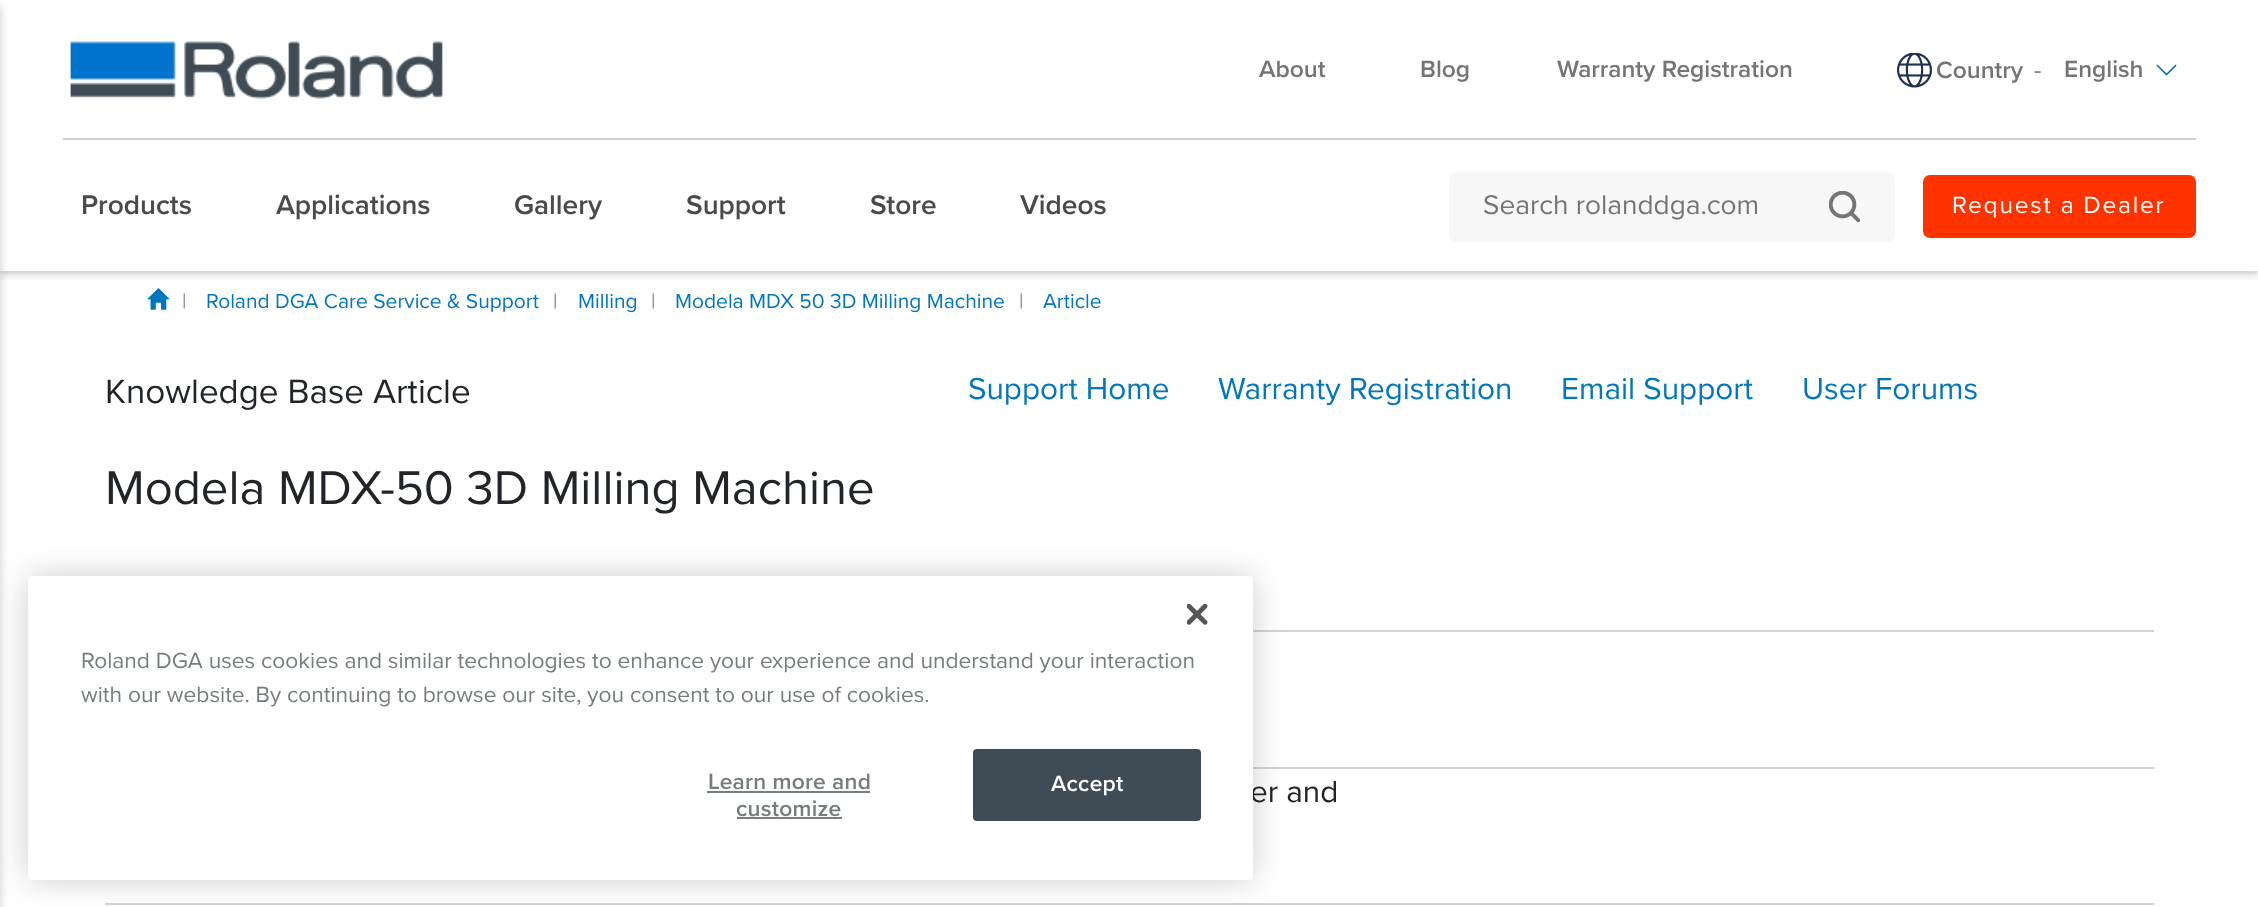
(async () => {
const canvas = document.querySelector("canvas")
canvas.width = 2258
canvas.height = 907
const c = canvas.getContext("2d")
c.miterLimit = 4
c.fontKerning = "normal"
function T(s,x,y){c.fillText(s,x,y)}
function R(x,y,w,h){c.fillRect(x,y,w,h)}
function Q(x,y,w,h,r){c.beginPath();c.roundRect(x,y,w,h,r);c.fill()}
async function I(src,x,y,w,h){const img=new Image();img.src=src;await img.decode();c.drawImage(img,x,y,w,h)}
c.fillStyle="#fff"
R(0,0,2258,907)
await I("5.png",147,288,23,22)
c.save()
c.beginPath()
c.rect(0,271,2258,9)
c.clip()
c.fillStyle="#0000001a"
c.filter="blur(3.5px)"
c.beginPath()
c.rect(0,145,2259,132)
c.fill()
c.filter="none"
c.restore()
c.save()
c.beginPath()
c.rect(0,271,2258,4)
c.clip()
c.fillStyle="#0000001a"
c.filter="blur(2px)"
c.beginPath()
c.rect(0,142,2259,131)
c.fill()
c.filter="none"
c.restore()
R(1,139,2257,1)
c.fillStyle="#00000033"
c.filter="blur(5px)"
c.beginPath()
c.rect(-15,5,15,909)
c.fill()
c.filter="none"
c.fillStyle="#ccc"
R(63,138,2133,2)
await I("1.png",70,41,373,58)
c.font="600 24.5px Proxima Nova"
c.fillStyle="#757575"
T("About",1259,77)
T("Blog",1420,77)
T("Warranty Registration",1557,77)
await I("2.png",1897,53,35,35)
T("Country",1936,78)
c.font="24.5px Proxima Nova"
T("-",2034,78)
c.font="600 24.5px Proxima Nova"
T("English",2064,77)
await I("3.png",2156,64,21,12)
c.font="600 28px Proxima Nova"
c.fillStyle="#4a4a4a"
T("Products",81,214)
T("Applications",276,214)
T("Gallery",514,214)
T("Support",686,214)
T("Store",870,214)
T("Videos",1020,214)
c.fillStyle="#f7f7f7"
Q(1449,172,446,70,7)
c.font="28px Proxima Nova"
c.fillStyle="#757575"
T("Search rolanddga.com",1483,214)
await I("4.png",1829,191,31,31)
c.fillStyle="#f30"
Q(1923,175,273,63,7)
c.letterSpacing="1.8px"
c.font="24.5px Proxima Nova"
c.fillStyle="#fff"
T("Request a Dealer",1952,213)
c.letterSpacing="0px"
c.font="21px Proxima Nova"
c.fillStyle="#7e8082"
T("|",182,308)
c.fillStyle="#0076be"
T("Roland DGA Care Service & Support",206,308)
c.fillStyle="#7e8082"
T("|",553,308)
c.fillStyle="#0076be"
T("Milling",578,308)
c.fillStyle="#7e8082"
T("|",651,308)
c.fillStyle="#0076be"
T("Modela MDX 50 3D Milling Machine",675,308)
c.fillStyle="#7e8082"
T("|",1019,308)
c.fillStyle="#0076be"
T("Article",1043,308)
c.font="35px Proxima Nova"
c.fillStyle="#212529"
T("Knowledge Base Article",105,403)
c.font="31.5px Proxima Nova"
c.fillStyle="#0076be"
T("Support Home",968,399)
T("Warranty Registration",1218,399)
T("Email Support",1561,399)
T("User Forums",1802,399)
c.font="49px Proxima Nova"
c.fillStyle="#212529"
T("Modela MDX-50 3D Milling Machine",105,504)
c.fillStyle="#d3d3d3"
R(1253,630,901,2)
R(1253,767,901,2)
c.font="31.5px Proxima Nova"
c.fillStyle="#212529"
T("er and",1250,802)
c.fillStyle="#d3d3d3"
R(105,903,2049,2)
c.fillStyle="#00000033"
c.filter="blur(16px)"
c.beginPath()
c.roundRect(28,576,1225,304,4)
c.fill()
c.filter="none"
c.fillStyle="#fff"
Q(28,576,1225,304,4)
await I("6.png",1187,604,21,21)
c.font="22.75px Proxima Nova"
c.fillStyle="#767d7d"
T("Roland DGA uses cookies and similar technologies to enhance your experience and understand your interaction",81,668)
T("with our website. By continuing to browse our site, you consent to our use of cookies.",81,702)
c.letterSpacing="0.25px"
c.font="600 22.75px Proxima Nova"
T("Learn more and",708,789)
R(707,791,163,2)
T("customize",736,816)
R(737,817,105,2)
c.fillStyle="#3f4b55"
c.beginPath()
c.roundRect(974,750,226,70,3)
c.fill()
c.strokeStyle="#3f4b55"
c.lineWidth=2
c.stroke()
c.fillStyle="#fff"
T("Accept",1051,791)
})()
